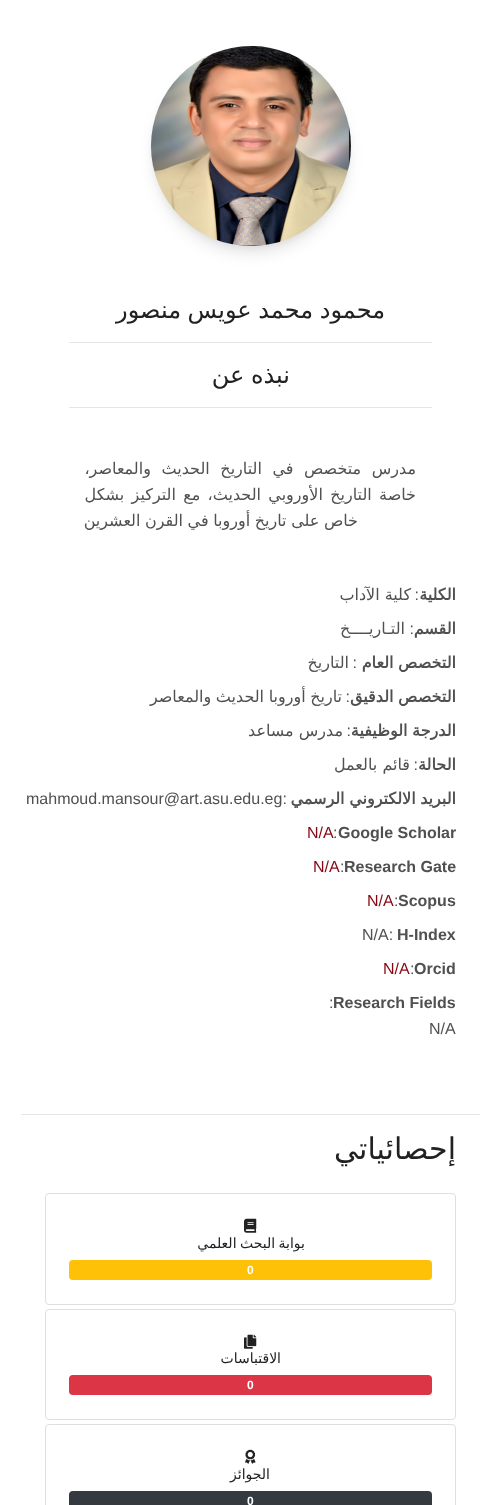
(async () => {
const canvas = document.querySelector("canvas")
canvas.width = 501
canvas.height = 1505
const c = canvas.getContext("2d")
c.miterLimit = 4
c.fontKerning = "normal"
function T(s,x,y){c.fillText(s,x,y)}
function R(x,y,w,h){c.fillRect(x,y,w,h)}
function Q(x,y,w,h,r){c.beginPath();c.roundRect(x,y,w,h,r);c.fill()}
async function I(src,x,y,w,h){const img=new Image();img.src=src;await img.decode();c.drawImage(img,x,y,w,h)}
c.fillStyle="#fff"
R(0,0,501,1505)
c.fillStyle="#0000000d"
c.filter="blur(3px)"
c.beginPath()
c.roundRect(153,52,196,196,98)
c.fill()
c.filter="none"
c.fillStyle="#0000001a"
c.filter="blur(7.5px)"
c.beginPath()
c.roundRect(154,59,194,194,97)
c.fill()
c.filter="none"
await I("1.png",151,46,200,200)
c.wordSpacing="-1px"
c.direction="rtl"
c.font="24px DejaVu Sans"
c.fillStyle="#212121"
T("محمود محمد عويس منصور",385,318)
c.fillStyle="#e6e6e6"
R(69,342,363,1)
c.fillStyle="#212121"
T("نبذه عن",290,383)
c.fillStyle="#e6e6e6"
R(69,407,363,1)
c.wordSpacing="5.5px"
c.font="16px DejaVu Sans"
c.fillStyle="#505050"
T("مدرس متخصص في التاريخ الحديث والمعاصر،",416,474)
c.wordSpacing="2.25px"
T("خاصة التاريخ الأوروبي الحديث، مع التركيز بشكل",416,500)
c.wordSpacing="-0.5px"
T("خاص على تاريخ أوروبا في القرن العشرين",358,526)
c.wordSpacing="0px"
c.font="bold 16px DejaVu Sans"
T("الكلية",456,600)
c.font="16px Liberation Sans"
T(":",419,600)
c.font="16px DejaVu Sans"
T("كلية الآداب",411,600)
c.font="bold 16px DejaVu Sans"
T("القسم",456,634)
c.font="16px Liberation Sans"
T(":",414,634)
c.font="16px DejaVu Sans"
T("التـاريــــخ",405,634)
c.wordSpacing="-0.5px"
c.font="bold 16px DejaVu Sans"
T("التخصص العام",456,668)
c.wordSpacing="0px"
c.font="16px Liberation Sans"
T(":",357,668)
c.font="16px DejaVu Sans"
T("التاريخ",349,668)
c.wordSpacing="-0.5px"
c.font="bold 16px DejaVu Sans"
T("التخصص الدقيق",456,702)
c.wordSpacing="0px"
c.font="16px Liberation Sans"
T(":",350,702)
c.wordSpacing="-0.5px"
c.font="16px DejaVu Sans"
T("تاريخ أوروبا الحديث والمعاصر",342,702)
c.font="bold 16px DejaVu Sans"
T("الدرجة الوظيفية",456,736)
c.wordSpacing="0px"
c.font="16px Liberation Sans"
T(":",351,736)
c.font="16px DejaVu Sans"
T("مدرس مساعد",343,736)
c.font="bold 16px DejaVu Sans"
T("الحالة",456,770)
c.font="16px Liberation Sans"
T(":",418,770)
c.font="16px DejaVu Sans"
T("قائم بالعمل",410,770)
c.wordSpacing="-0.5px"
c.font="bold 16px DejaVu Sans"
T("البريد الالكتروني الرسمي",456,804)
c.wordSpacing="0px"
c.direction="ltr"
c.font="16px Liberation Sans"
T("mahmoud.mansour@art.asu.edu.eg:",26,804)
c.font="bold 16px Liberation Sans"
T("Google Scholar",338,838)
c.font="16px Liberation Sans"
T(":",333,838)
c.fillStyle="#850714"
T("N/A",307,838)
c.font="bold 16px Liberation Sans"
c.fillStyle="#505050"
T("Research Gate",344,872)
c.font="16px Liberation Sans"
T(":",340,872)
c.fillStyle="#850714"
T("N/A",313,872)
c.font="bold 16px Liberation Sans"
c.fillStyle="#505050"
T("Scopus",398,906)
c.font="16px Liberation Sans"
T(":",394,906)
c.fillStyle="#850714"
T("N/A",367,906)
c.font="bold 16px Liberation Sans"
c.fillStyle="#505050"
T("H-Index",397,940)
c.font="16px Liberation Sans"
T("N/A:",362,940)
c.font="bold 16px Liberation Sans"
T("Orcid",414,974)
c.font="16px Liberation Sans"
T(":",410,974)
c.fillStyle="#850714"
T("N/A",383,974)
c.font="bold 16px Liberation Sans"
c.fillStyle="#505050"
T("Research Fields",333,1008)
c.font="16px Liberation Sans"
T(":",329,1008)
T("N/A",429,1034)
c.fillStyle="#e6e6e6"
R(21,1114,459,1)
c.direction="rtl"
c.font="30px DejaVu Sans"
c.fillStyle="#212121"
T("إحصائياتي",456,1159)
c.beginPath()
c.roundRect(45.5,1193.5,410,111,3.5)
c.strokeStyle="#dfdfdf"
c.stroke()
await I("2.png",244,1218,13,15)
c.wordSpacing="-1px"
c.font="14px DejaVu Sans"
T("بوابة البحث العلمي",305,1248)
c.fillStyle="#ffc107"
Q(69,1260,363,20,4)
c.wordSpacing="0px"
c.direction="ltr"
c.font="bold 12px Liberation Sans"
c.fillStyle="#fff"
T("0",247,1274)
c.beginPath()
c.roundRect(45.5,1309.5,410,110,3.5)
c.stroke()
await I("3.png",244,1334,13,15)
c.direction="rtl"
c.font="14px DejaVu Sans"
c.fillStyle="#212121"
T("الاقتباسات",281,1363)
c.fillStyle="#dc3545"
Q(69,1375,363,20,4)
c.direction="ltr"
c.font="bold 12px Liberation Sans"
c.fillStyle="#fff"
T("0",247,1389)
c.beginPath()
c.roundRect(45.5,1424.5,410,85,3.5)
c.stroke()
await I("4.png",245,1449,11,15)
c.direction="rtl"
c.font="14px DejaVu Sans"
c.fillStyle="#212121"
T("الجوائز",270,1479)
c.fillStyle="#343a40"
Q(69,1491,363,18,4)
c.direction="ltr"
c.font="bold 12px Liberation Sans"
c.fillStyle="#fff"
T("0",247,1505)
})()
